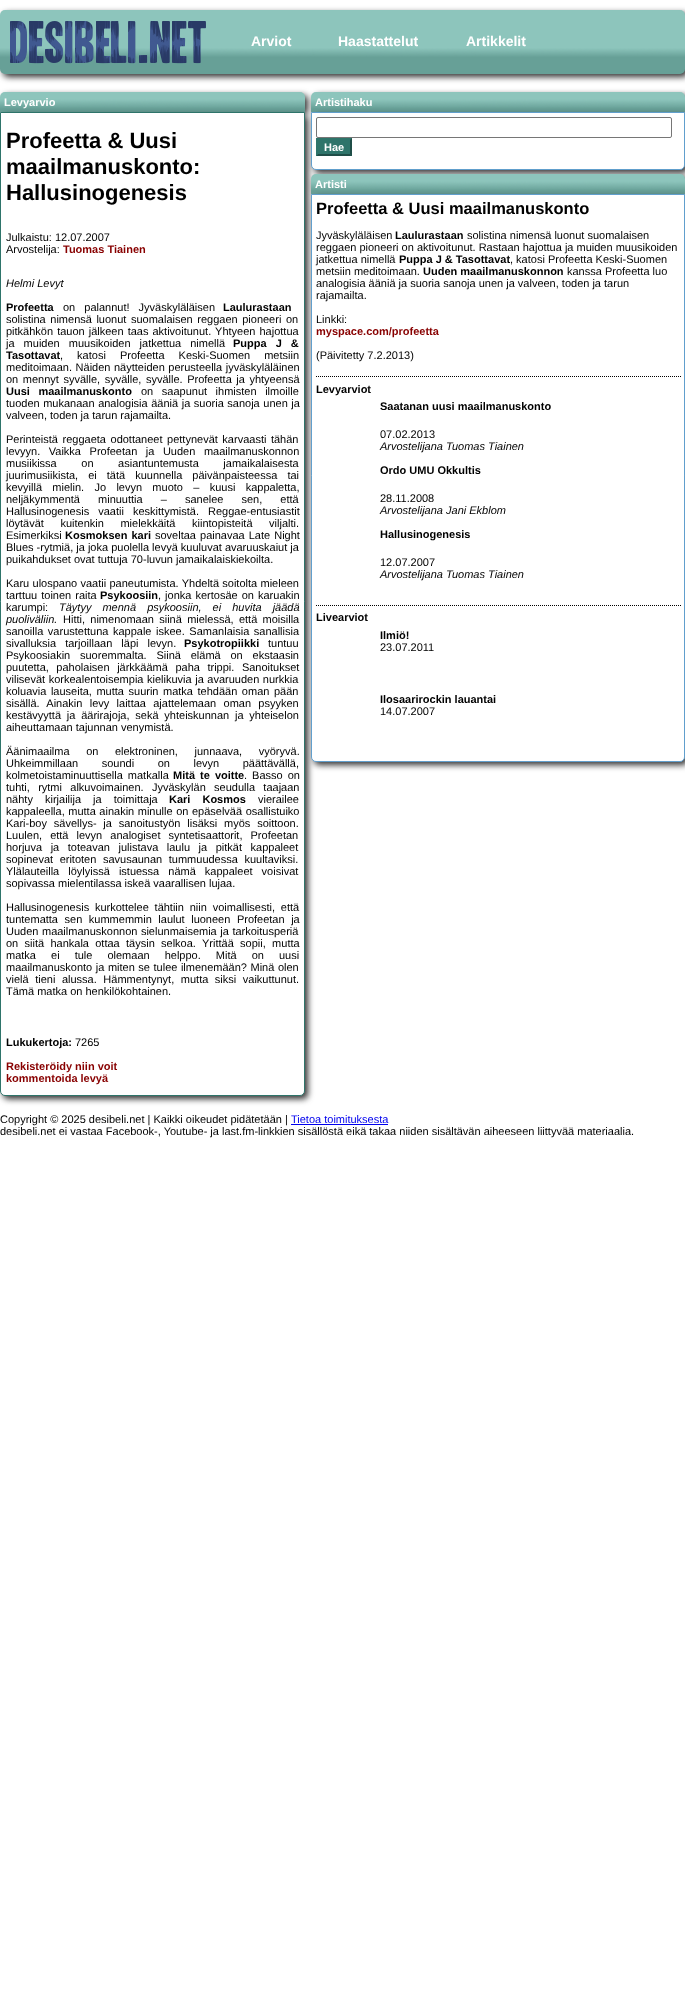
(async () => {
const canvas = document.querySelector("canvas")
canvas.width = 685
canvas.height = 2010
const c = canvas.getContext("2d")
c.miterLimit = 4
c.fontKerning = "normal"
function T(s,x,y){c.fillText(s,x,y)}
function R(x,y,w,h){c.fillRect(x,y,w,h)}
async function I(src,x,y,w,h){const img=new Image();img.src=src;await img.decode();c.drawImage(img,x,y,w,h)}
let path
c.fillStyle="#fff"
R(0,0,685,2010)
c.fillStyle="#333"
c.filter="blur(3px)"
c.beginPath()
c.roundRect(3,13,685,64,5)
c.fill()
c.filter="none"
await I("1.png",0,10,685,64)
await I("2.png",10,21,196,43)
c.font="bold 14px Liberation Sans"
c.fillStyle="#fff"
T("Arviot",251,46)
T("Haastattelut",338,46)
T("Artikkelit",466,46)
c.fillStyle="#333"
c.filter="blur(3px)"
c.beginPath()
c.roundRect(3,95,305,20,5)
c.fill()
c.filter="none"
await I("3.png",0,92,305,20)
c.font="bold 11px Liberation Sans"
c.fillStyle="#fff"
T("Levyarvio",4,106)
c.fillStyle="#333"
c.filter="blur(3px)"
c.beginPath()
c.roundRect(3,115,305,984,5)
c.fill()
c.filter="none"
c.fillStyle="#fff"
c.beginPath()
c.roundRect(.5,112.5,304,983,[0,0,4.5,4.5])
c.fill()
c.strokeStyle="#2e746a"
c.stroke()
c.font="bold 22px Liberation Sans"
c.fillStyle="#000"
T("Profeetta & Uusi",6,148)
T("maailmanuskonto:",6,174)
T("Hallusinogenesis",6,200)
c.font="11px Liberation Sans"
T("Julkaistu: 12.07.2007",6,241)
T("Arvostelija:",6,253)
c.font="bold 11px Liberation Sans"
c.fillStyle="#800"
T("Tuomas Tiainen",63,253)
c.font="italic 11px Liberation Sans"
c.fillStyle="#000"
T("Helmi Levyt",6,287)
c.font="bold 11px Liberation Sans"
T("Profeetta",6,311)
c.wordSpacing="6px"
c.font="11px Liberation Sans"
T("on palannut! Jyväskyläläisen",63,311)
c.wordSpacing="0px"
c.font="bold 11px Liberation Sans"
T("Laulurastaan",223,311)
c.wordSpacing="1.5px"
c.font="11px Liberation Sans"
T("solistina nimensä luonut suomalaisen reggaen pioneeri on",6,323)
c.wordSpacing="1px"
T("pitkähkön tauon jälkeen taas aktivoitunut. Yhtyeen hajottua",6,335)
c.wordSpacing="6px"
T("ja muiden muusikoiden jatkettua nimellä",6,347)
c.font="bold 11px Liberation Sans"
T("Puppa J &",233,347)
c.wordSpacing="0px"
T("Tasottavat",6,359)
c.wordSpacing="11px"
c.font="11px Liberation Sans"
T(", katosi Profeetta Keski-Suomen metsiin",60,359)
c.wordSpacing="0.5px"
T("meditoimaan. Näiden näytteiden perusteella jyväskyläläinen",6,371)
c.wordSpacing="1.5px"
T("on mennyt syvälle, syvälle, syvälle. Profeetta ja yhtyeensä",6,383)
c.wordSpacing="5.5px"
c.font="bold 11px Liberation Sans"
T("Uusi maailmanuskonto",6,395)
c.font="11px Liberation Sans"
T("on saapunut ihmisten ilmoille",141,395)
c.wordSpacing="0.5px"
T("tuoden mukanaan analogisia ääniä ja suoria sanoja unen ja",6,407)
c.wordSpacing="0px"
T("valveen, toden ja tarun rajamailta.",6,419)
c.wordSpacing="1.5px"
T("Perinteistä reggaeta odottaneet pettynevät karvaasti tähän",6,443)
c.wordSpacing="5.5px"
T("levyyn. Vaikka Profeetan ja Uuden maailmanuskonnon",6,455)
c.wordSpacing="21.5px"
T("musiikissa on asiantuntemusta jamaikalaisesta",6,467)
c.wordSpacing="7px"
T("juurimusiikista, ei tätä kuunnella päivänpaisteessa tai",6,479)
c.wordSpacing="7.25px"
T("kevyillä mielin. Jo levyn muoto – kuusi kappaletta,",6,491)
c.wordSpacing="15px"
T("neljäkymmentä minuuttia – sanelee sen, että",6,503)
c.wordSpacing="6px"
T("Hallusinogenesis vaatii keskittymistä. Reggae-entusiastit",6,515)
c.wordSpacing="13.5px"
T("löytävät kuitenkin mielekkäitä kiintopisteitä viljalti.",6,527)
c.wordSpacing="0px"
T("Esimerkiksi",6,539)
c.wordSpacing="1px"
c.font="bold 11px Liberation Sans"
T("Kosmoksen kari",65,539)
c.font="11px Liberation Sans"
T("soveltaa painavaa Late Night",155,539)
c.wordSpacing="0px"
T("Blues -rytmiä, ja joka puolella levyä kuuluvat avaruuskaiut ja",6,551)
T("puikahdukset ovat tuttuja 70-luvun jamaikalaiskiekoilta.",6,563)
c.wordSpacing="0.25px"
T("Karu ulospano vaatii paneutumista. Yhdeltä soitolta mieleen",6,587)
c.wordSpacing="1px"
T("tarttuu toinen raita",6,599)
c.wordSpacing="0px"
c.font="bold 11px Liberation Sans"
T("Psykoosiin",100,599)
c.wordSpacing="1px"
c.font="11px Liberation Sans"
T(", jonka kertosäe on karuakin",158,599)
c.wordSpacing="0px"
T("karumpi:",6,611)
c.wordSpacing="8px"
c.font="italic 11px Liberation Sans"
T("Täytyy mennä psykoosiin, ei huvita jäädä",59,611)
c.wordSpacing="0px"
T("puoliväliin.",6,623)
c.wordSpacing="2.25px"
c.font="11px Liberation Sans"
T("Hitti, nimenomaan siinä mielessä, että moisilla",63,623)
c.wordSpacing="1.5px"
T("sanoilla varustettuna kappale iskee. Samanlaisia sanallisia",6,635)
c.wordSpacing="6px"
T("sivalluksia tarjoillaan läpi levyn.",6,647)
c.wordSpacing="0px"
c.font="bold 11px Liberation Sans"
T("Psykotropiikki",184,647)
c.font="11px Liberation Sans"
T("tuntuu",268,647)
c.wordSpacing="6.75px"
T("Psykoosiakin suoremmalta. Siinä elämä on ekstaasin",6,659)
c.wordSpacing="4.5px"
T("puutetta, paholaisen järkkäämä paha trippi. Sanoitukset",6,671)
c.wordSpacing="0.5px"
T("vilisevät korkealentoisempia kielikuvia ja avaruuden nurkkia",6,683)
c.wordSpacing="1.5px"
T("koluavia lauseita, mutta suurin matka tehdään oman pään",6,695)
c.wordSpacing="4.25px"
T("sisällä. Ainakin levy laittaa ajattelemaan oman psyyken",6,707)
c.wordSpacing="2.75px"
T("kestävyyttä ja äärirajoja, sekä yhteiskunnan ja yhteiselon",6,719)
c.wordSpacing="0px"
T("aiheuttamaan tajunnan venymistä.",6,731)
c.wordSpacing="13.5px"
T("Äänimaailma on elektroninen, junnaava, vyöryvä.",6,755)
c.wordSpacing="20.5px"
T("Uhkeimmillaan soundi on levyn päättävällä,",6,767)
c.wordSpacing="2px"
T("kolmetoistaminuuttisella matkalla",6,779)
c.font="bold 11px Liberation Sans"
T("Mitä te voitte",173,779)
c.font="11px Liberation Sans"
T(". Basso on",244,779)
c.wordSpacing="5.25px"
T("tuhti, rytmi alkuvoimainen. Jyväskylän seudulla taajaan",6,791)
c.wordSpacing="9px"
T("nähty kirjailija ja toimittaja",6,803)
c.font="bold 11px Liberation Sans"
T("Kari Kosmos",169,803)
c.wordSpacing="0px"
c.font="11px Liberation Sans"
T("vierailee",258,803)
c.wordSpacing="0.5px"
T("kappaleella, mutta ainakin minulle on epäselvää osallistuiko",6,815)
c.wordSpacing="3.75px"
T("Kari-boy sävellys- ja sanoitustyön lisäksi myös soittoon.",6,827)
c.wordSpacing="5px"
T("Luulen, että levyn analogiset syntetisaattorit, Profeetan",6,839)
c.wordSpacing="5.5px"
T("horjuva ja toteavan julistava laulu ja pitkät kappaleet",6,851)
c.wordSpacing="3.5px"
T("sopinevat eritoten savusaunan tummuudessa kuultaviksi.",6,863)
c.wordSpacing="6px"
T("Ylälauteilla löylyissä istuessa nämä kappaleet voisivat",6,875)
c.wordSpacing="0px"
T("sopivassa mielentilassa iskeä vaarallisen lujaa.",6,887)
c.wordSpacing="2.75px"
T("Hallusinogenesis kurkottelee tähtiin niin voimallisesti, että",6,911)
c.wordSpacing="3.5px"
T("tuntematta sen kummemmin laulut luoneen Profeetan ja",6,923)
c.wordSpacing="0.5px"
T("Uuden maailmanuskonnon sielunmaisemia ja tarkoitusperiä",6,935)
c.wordSpacing="3.25px"
T("on siitä hankala ottaa täysin selkoa. Yrittää sopii, mutta",6,947)
c.wordSpacing="12px"
T("matka ei tule olemaan helppo. Mitä on uusi",6,959)
c.wordSpacing="0.5px"
T("maailmanuskonto ja miten se tulee ilmenemään? Minä olen",6,971)
c.wordSpacing="3.5px"
T("vielä tieni alussa. Hämmentynyt, mutta siksi vaikuttunut.",6,983)
c.wordSpacing="0px"
T("Tämä matka on henkilökohtainen.",6,995)
c.font="bold 11px Liberation Sans"
T("Lukukertoja:",6,1046)
c.font="11px Liberation Sans"
T("7265",75,1046)
c.font="bold 11px Liberation Sans"
c.fillStyle="#800"
T("Rekisteröidy niin voit",6,1070)
T("kommentoida levyä",6,1082)
c.fillStyle="#333"
c.filter="blur(3px)"
c.beginPath()
c.roundRect(314,95,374,20,5)
c.fill()
c.filter="none"
await I("4.png",311,92,374,20)
c.filter="blur(3px)"
c.beginPath()
c.roundRect(314,115,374,58,5)
c.fill()
c.filter="none"
c.fillStyle="#fff"
T("Artistihaku",315,106)
c.beginPath()
c.roundRect(311.5,112.5,373,57,[0,0,4.5,4.5])
c.fill()
c.strokeStyle="#619fcd"
c.stroke()
c.beginPath()
c.roundRect(316.5,117.5,355,20,1.5)
c.strokeStyle="#767676"
c.stroke()
c.fillStyle="#2e746a"
R(316,138,36,18)
c.fillStyle="#1f4d47"
path = new Path2D("M352 138v18l-2-2v-14z")
c.fill(path)
path = new Path2D("M352 156h-36l2-2h32z")
c.fill(path)
c.fillStyle="#2e746a"
path = new Path2D("M316 156v-18l2 2v14z")
c.fill(path)
c.fillStyle="#fff"
T("Hae",324,151)
c.fillStyle="#333"
c.filter="blur(3px)"
c.beginPath()
c.roundRect(314,177,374,20,5)
c.fill()
c.filter="none"
await I("5.png",311,174,374,20)
c.filter="blur(3px)"
c.beginPath()
c.roundRect(314,197,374,568,5)
c.fill()
c.filter="none"
c.fillStyle="#fff"
T("Artisti",315,188)
c.beginPath()
c.roundRect(311.5,194.5,373,567,[0,0,4.5,4.5])
c.fill()
c.strokeStyle="#619fcd"
c.stroke()
c.font="bold 16.5px Liberation Sans"
c.fillStyle="#000"
T("Profeetta & Uusi maailmanuskonto",316,214)
c.font="11px Liberation Sans"
T("Jyväskyläläisen",316,239)
c.font="bold 11px Liberation Sans"
T("Laulurastaan",395,239)
c.font="11px Liberation Sans"
T("solistina nimensä luonut suomalaisen",467,239)
T("reggaen pioneeri on aktivoitunut. Rastaan hajottua ja muiden muusikoiden",316,251)
T("jatkettua nimellä",316,263)
c.font="bold 11px Liberation Sans"
T("Puppa J & Tasottavat",399,263)
c.font="11px Liberation Sans"
T(", katosi Profeetta Keski-Suomen",510,263)
T("metsiin meditoimaan.",316,275)
c.font="bold 11px Liberation Sans"
T("Uuden maailmanuskonnon",423,275)
c.font="11px Liberation Sans"
T("kanssa Profeetta luo",567,275)
T("analogisia ääniä ja suoria sanoja unen ja valveen, toden ja tarun",316,287)
T("rajamailta.",316,299)
T("Linkki:",316,323)
c.font="bold 11px Liberation Sans"
c.fillStyle="#800"
T("myspace.com/profeetta",316,335)
c.font="11px Liberation Sans"
c.fillStyle="#000"
T("(Päivitetty 7.2.2013)",316,359)
path = new Path2D("M316 376.5h366")
c.strokeStyle="#000"
c.setLineDash([1,1])
c.stroke(path)
c.font="bold 11px Liberation Sans"
T("Levyarviot",316,393)
T("Saatanan uusi maailmanuskonto",380,410)
c.font="11px Liberation Sans"
T("07.02.2013",380,438)
c.font="italic 11px Liberation Sans"
T("Arvostelijana Tuomas Tiainen",380,450)
c.font="bold 11px Liberation Sans"
T("Ordo UMU Okkultis",380,474)
c.font="11px Liberation Sans"
T("28.11.2008",380,502)
c.font="italic 11px Liberation Sans"
T("Arvostelijana Jani Ekblom",380,514)
c.font="bold 11px Liberation Sans"
T("Hallusinogenesis",380,538)
c.font="11px Liberation Sans"
T("12.07.2007",380,566)
c.font="italic 11px Liberation Sans"
T("Arvostelijana Tuomas Tiainen",380,578)
path = new Path2D("M316 605.5h366")
c.stroke(path)
c.font="bold 11px Liberation Sans"
T("Livearviot",316,621)
T("Ilmiö!",380,639)
c.font="11px Liberation Sans"
T("23.07.2011",380,651)
c.font="bold 11px Liberation Sans"
T("Ilosaarirockin lauantai",380,703)
c.font="11px Liberation Sans"
T("14.07.2007",380,715)
T("Copyright © 2025 desibeli.net | Kaikki oikeudet pidätetään |",0,1123)
c.fillStyle="#00e"
T("Tietoa toimituksesta",291,1123)
R(291,1124,97,1)
c.fillStyle="#000"
T("desibeli.net ei vastaa Facebook-, Youtube- ja last.fm-linkkien sisällöstä eikä takaa niiden sisältävän aiheeseen liittyvää materiaalia.",0,1135)
})()
